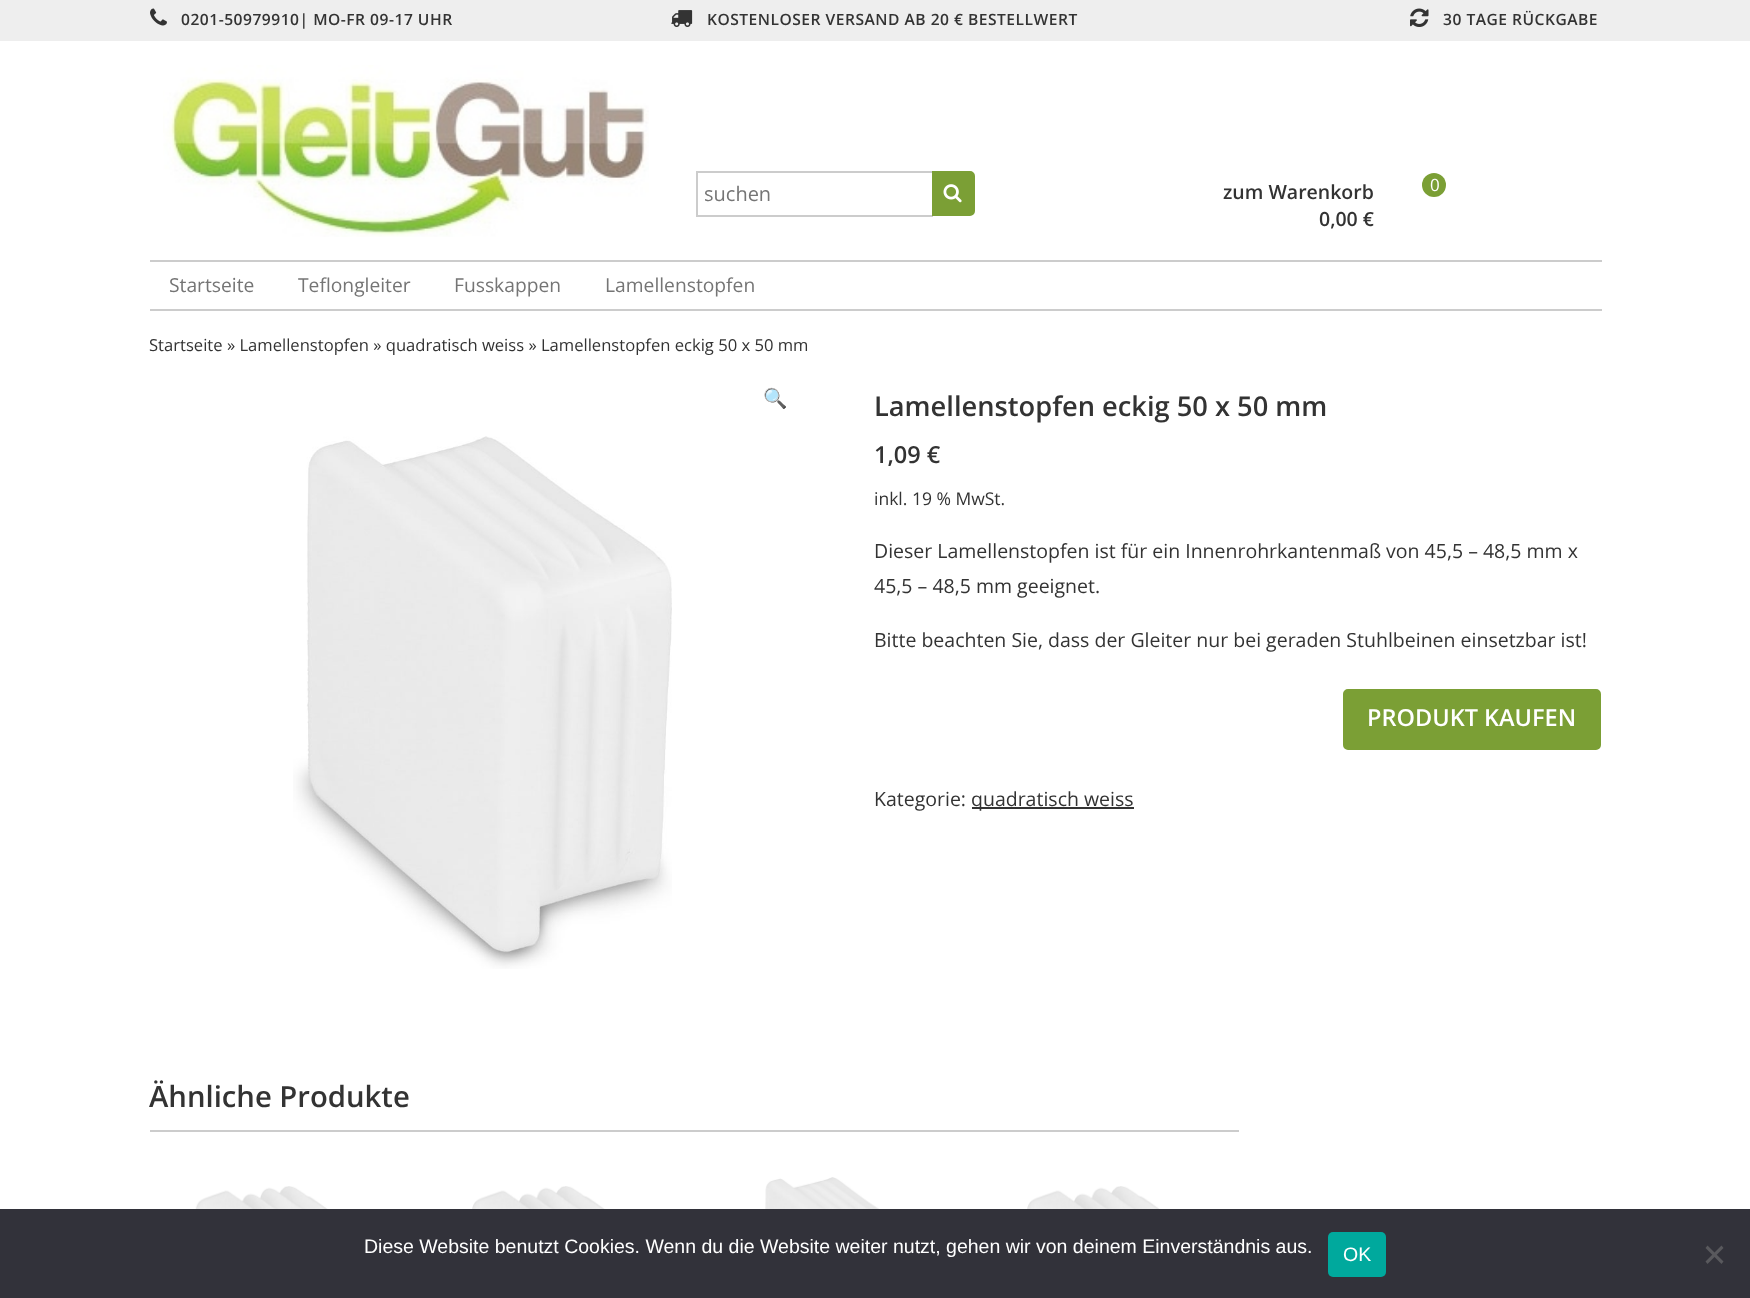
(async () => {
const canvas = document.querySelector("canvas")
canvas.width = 1750
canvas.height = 1298
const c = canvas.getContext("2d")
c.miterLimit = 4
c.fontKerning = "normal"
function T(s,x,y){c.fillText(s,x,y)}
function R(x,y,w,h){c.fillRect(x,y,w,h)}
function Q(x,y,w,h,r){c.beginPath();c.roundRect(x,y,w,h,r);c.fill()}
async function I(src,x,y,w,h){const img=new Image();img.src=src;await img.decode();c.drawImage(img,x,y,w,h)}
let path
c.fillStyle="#fff"
R(0,0,1750,1298)
c.fillStyle="#eee"
R(0,0,1750,41)
await I("1.png",150,8,17,18)
c.letterSpacing="0.5px"
c.font="600 15.6px Open Sans"
c.fillStyle="#333"
T("0201-50979910| MO-FR 09-17 UHR",181,25)
await I("2.png",671,10,22,17)
T("KOSTENLOSER VERSAND AB 20 € BESTELLWERT",707,25)
await I("3.png",1410,8,19,19)
T("30 TAGE RÜCKGABE",1443,25)
await I("4.png",163,65,486,172)
c.fillStyle="#ccc"
R(696,171,237,2)
R(696,215,237,2)
R(696,171,2,45)
c.letterSpacing="0px"
c.font="20px Open Sans"
c.fillStyle="#757575"
T("suchen",704,201)
c.fillStyle="#7b9f35"
c.beginPath()
c.roundRect(933,172,41,43,[0,4,4,0])
c.fill()
c.strokeStyle="#7b9f35"
c.lineWidth=2
c.stroke()
await I("5.png",943,184,19,19)
c.font="600 19.5px Open Sans"
c.fillStyle="#333"
T("zum Warenkorb",1223,199)
T("0,00 €",1319,226)
c.fillStyle="#7b9f35"
c.beginPath()
c.arc(1434,185,12,0,7)
c.fill()
c.font="17px Open Sans"
c.fillStyle="#fff"
T("0",1430,191)
c.fillStyle="#ccc"
R(150,260,1452,2)
R(150,309,1452,2)
c.font="19.25px Open Sans"
c.fillStyle="#757575"
T("Startseite",169,292)
T("Teflongleiter",298,292)
T("Fusskappen",454,292)
T("Lamellenstopfen",605,292)
c.font="16.6px Open Sans"
c.fillStyle="#333"
T("Startseite » Lamellenstopfen » quadratisch weiss » Lamellenstopfen eckig 50 x 50 mm",149,351)
c.font="19.5px Noto Color Emoji"
T("🔍",763,405)
await I("6.png",293,436,379,533)
c.font="600 27.25px Open Sans"
T("Lamellenstopfen eckig 50 x 50 mm",874,416)
c.font="600 23.5px Open Sans"
T("1,09 €",874,463)
c.font="17.5px Open Sans"
T("inkl. 19 % MwSt.",874,505)
c.font="19.5px Open Sans"
T("Dieser Lamellenstopfen ist für ein Innenrohrkantenmaß von 45,5 – 48,5 mm x",874,558)
T("45,5 – 48,5 mm geeignet.",874,593)
T("Bitte beachten Sie, dass der Gleiter nur bei geraden Stuhlbeinen einsetzbar ist!",874,647)
c.fillStyle="#7b9f35"
c.beginPath()
c.roundRect(1344,690,256,59,4)
c.fill()
c.stroke()
c.font="600 23.5px Open Sans"
c.fillStyle="#fff"
T("PRODUKT KAUFEN",1367,726)
c.font="19.5px Open Sans"
c.fillStyle="#333"
T("Kategorie:",874,806)
R(972,807,162,2)
T("quadratisch weiss",971,806)
c.font="600 29.25px Open Sans"
T("Ähnliche Produkte",149,1107)
c.fillStyle="#ccc"
R(150,1130,1089,2)
await I("7.png",195,1186,165,23)
await I("8.png",472,1186,165,23)
await I("9.png",765,1177,137,32)
await I("8.png",1027,1186,165,23)
c.fillStyle="#32323a"
R(0,1209,1750,89)
c.font="19.5px Liberation Sans"
c.fillStyle="#fff"
T("Diese Website benutzt Cookies. Wenn du die Website weiter nutzt, gehen wir von deinem Einverständnis aus.",364,1253)
c.fillStyle="#00a99d"
Q(1328,1232,58,45,5)
c.fillStyle="#fff"
T("OK",1343,1261)
c.fillStyle="#59595d"
path = new Path2D("M1721.5 1245.5l2 2.5l-16 16l-2-2.5z")
c.fill(path)
path = new Path2D("M1705.5 1248l2-2.5l16 16l-2 2.5z")
c.fill(path)
})()
